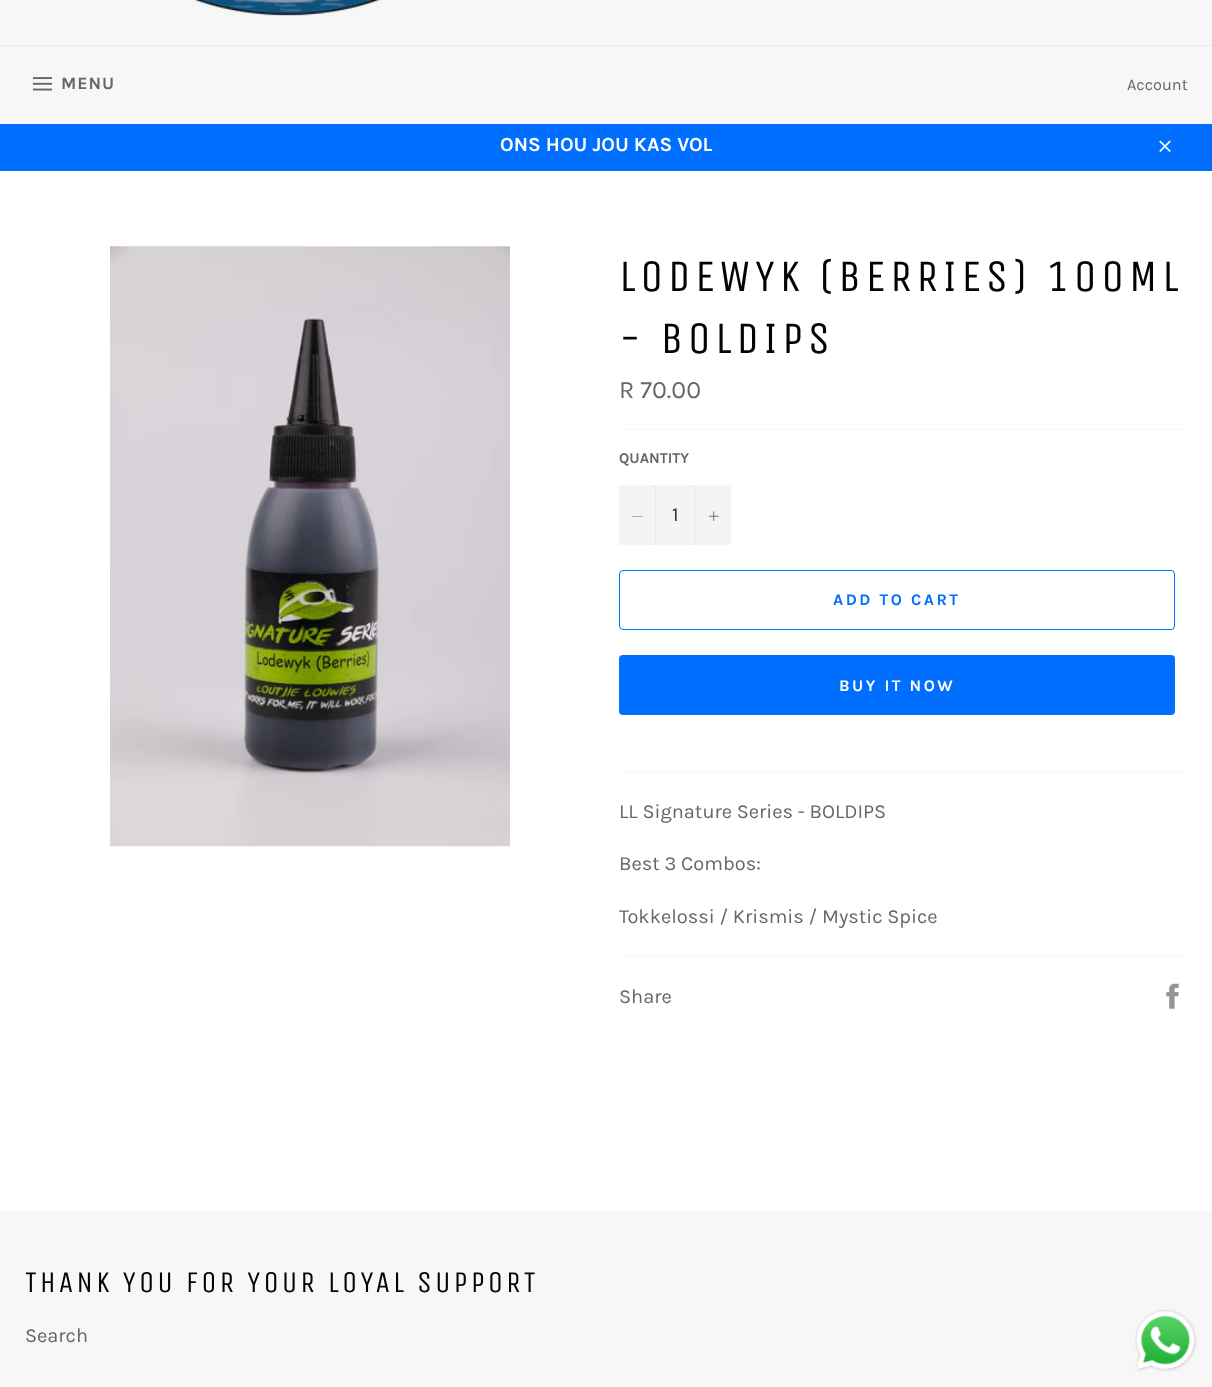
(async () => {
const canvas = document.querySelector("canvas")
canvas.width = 1212
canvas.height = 1387
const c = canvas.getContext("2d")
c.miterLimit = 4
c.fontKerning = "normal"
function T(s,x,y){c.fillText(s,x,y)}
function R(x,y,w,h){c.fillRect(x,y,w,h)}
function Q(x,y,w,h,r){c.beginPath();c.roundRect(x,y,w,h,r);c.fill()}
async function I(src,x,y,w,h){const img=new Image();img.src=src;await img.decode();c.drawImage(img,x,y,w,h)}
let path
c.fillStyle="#f7f7f7"
R(0,0,1212,1387)
await I("1.png",193,0,188,16)
c.fillStyle="#eaeaea"
R(0,45,1212,1)
await I("2.png",32,77,21,14)
c.letterSpacing="1px"
c.font="bold 17.5px Karla"
c.fillStyle="#666"
T("MENU",61,89)
c.letterSpacing="0px"
c.font="16.25px Karla"
T("Account",1127,90)
c.fillStyle="#006eff"
R(0,124,1212,47)
c.font="bold 20px Karla"
c.fillStyle="#fff"
T("ONS HOU JOU KAS VOL",500,151)
await I("3.png",1159,140,12,12)
R(0,171,1212,1040)
await I("4.png",110,246,400,601)
c.letterSpacing="4.5px"
c.font="45px Unica One"
c.fillStyle="#030303"
T("LODEWYK (BERRIES) 100ML",619,291)
T("- BOLDIPS",619,353)
c.letterSpacing="0px"
c.font="25px Karla"
c.fillStyle="#666"
T("R 70.00",619,398)
c.fillStyle="#f7f7f7"
R(619,429,569,1)
c.font="bold 15px Karla"
c.fillStyle="#666"
T("QUANTITY",619,463)
c.fillStyle="#f4f4f4"
R(619,485,112,60)
c.fillStyle="#e7e7e7"
R(655,485,1,60)
c.fillStyle="#666"
path = new Path2D("M642.5 516v.5h-10v-.5z")
c.fill(path,"evenodd")
c.font="20px Karla"
c.fillStyle="#333"
T("1",672,521)
c.fillStyle="#e7e7e7"
R(694,485,1,60)
await I("5.png",709,511,10,10)
c.beginPath()
c.roundRect(619.5,570.5,555,59,3.5)
c.strokeStyle="#006eff"
c.stroke()
c.letterSpacing="2.5px"
c.font="bold 16.25px Karla"
c.fillStyle="#006eff"
T("ADD TO CART",833,605)
Q(619,655,556,60,4)
c.fillStyle="#fff"
T("BUY IT NOW",839,691)
c.fillStyle="#f7f7f7"
R(619,771,569,1)
c.letterSpacing="0px"
c.font="20px Karla"
c.fillStyle="#666"
T("LL Signature Series - BOLDIPS",619,818)
T("Best 3 Combos:",619,870)
T("Tokkelossi / Krismis / Mystic Spice",619,923)
c.fillStyle="#f7f7f7"
R(619,955,569,1)
c.fillStyle="#666"
T("Share",619,1003)
await I("6.png",1166,983,13,26)
c.letterSpacing="3px"
c.font="30px Unica One"
c.fillStyle="#030303"
T("THANK YOU FOR YOUR LOYAL SUPPORT",25,1292)
c.letterSpacing="0px"
c.font="20px Karla"
c.fillStyle="#666"
T("Search",25,1342)
await I("7.png",1134,1309,63,63)
})()
